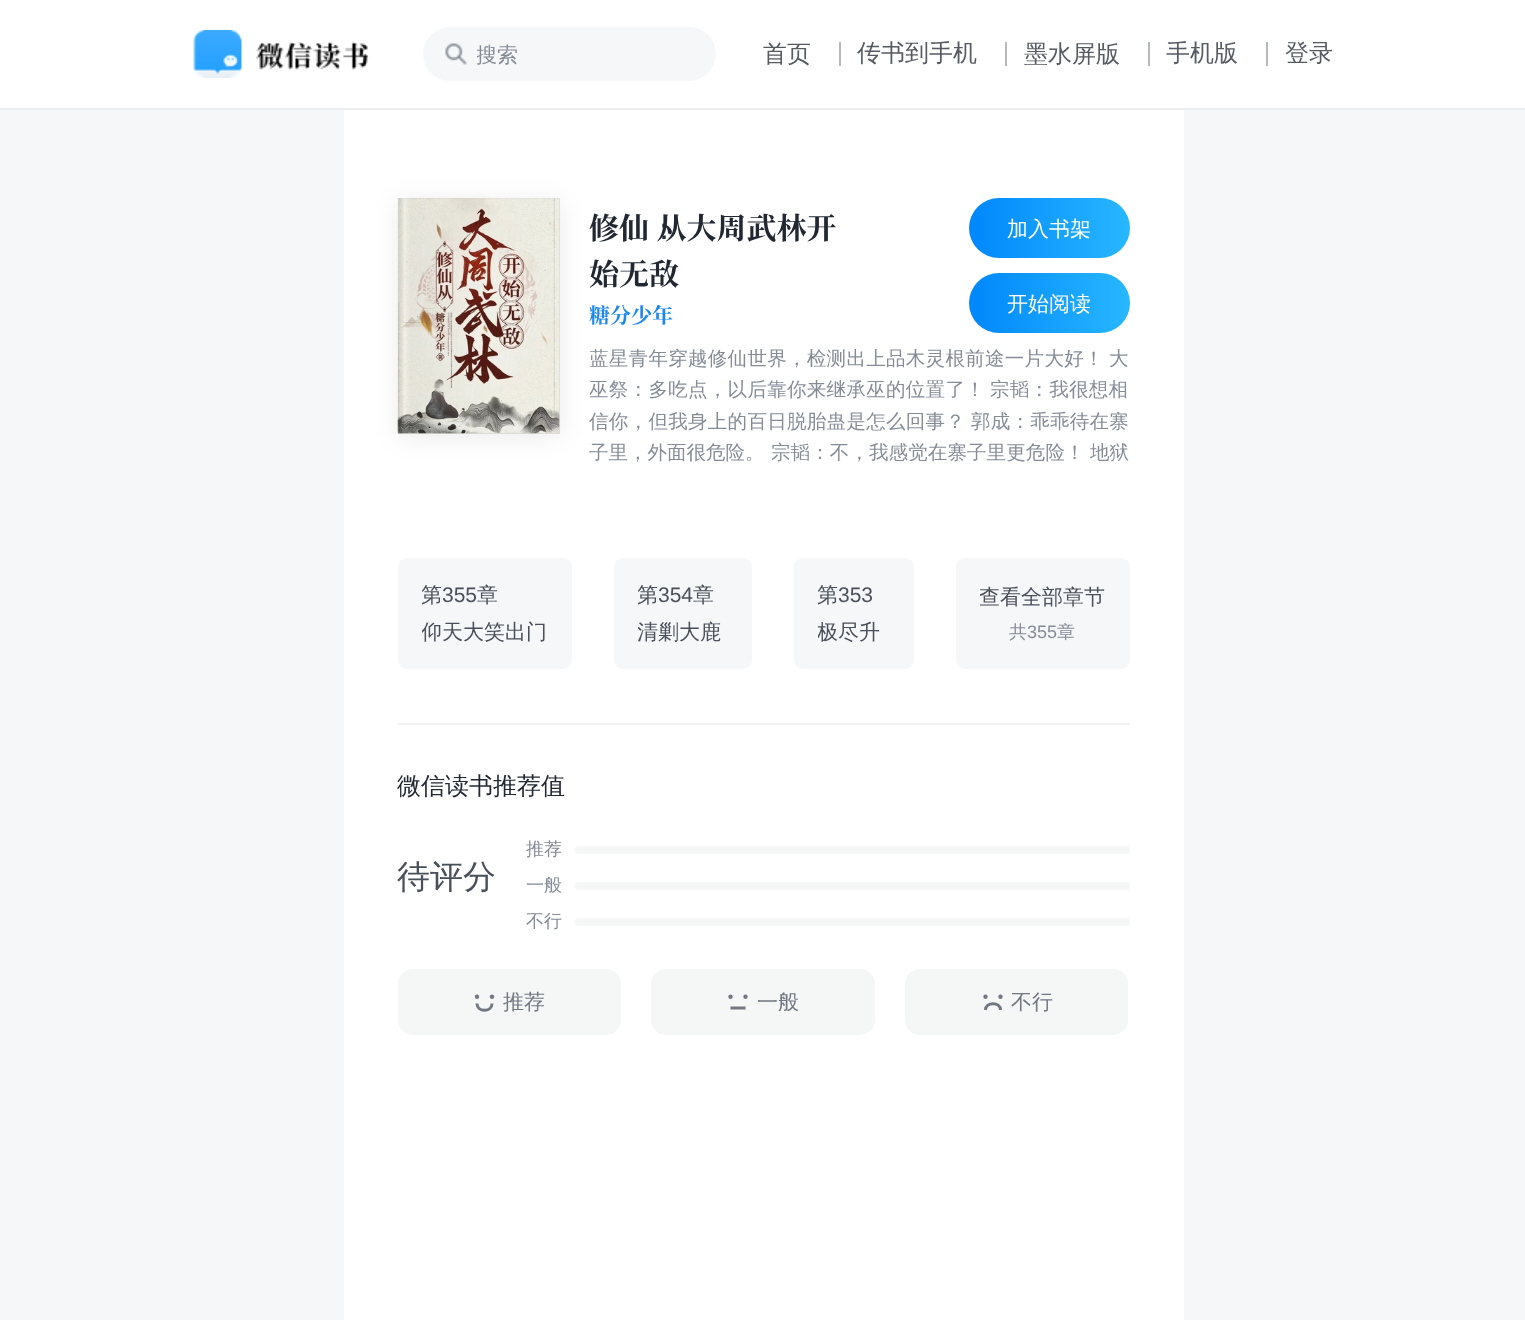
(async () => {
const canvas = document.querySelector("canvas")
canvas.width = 1525
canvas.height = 1320
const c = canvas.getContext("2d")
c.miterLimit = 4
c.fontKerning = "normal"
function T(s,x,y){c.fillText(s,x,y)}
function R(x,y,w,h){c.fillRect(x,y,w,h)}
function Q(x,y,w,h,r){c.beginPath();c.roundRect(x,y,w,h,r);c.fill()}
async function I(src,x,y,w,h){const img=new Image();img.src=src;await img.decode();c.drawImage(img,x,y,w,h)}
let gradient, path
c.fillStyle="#f6f7f9"
R(0,0,1525,1320)
c.fillStyle="#fff"
R(0,0,1525,108)
c.fillStyle="#ebedf1"
R(0,108,1525,2)
await I("1.png",193,30,176,48)
c.fillStyle="#f6f7f9"
Q(423,27,293,54,27)
await I("2.png",445,43,22,22)
c.save()
c.beginPath()
c.rect(477,42,185,27)
c.clip()
c.font="500 21px WenQuanYi Zen Hei"
c.fillStyle="#858c96"
T("搜索",476,62)
c.restore()
c.font="500 24px WenQuanYi Zen Hei"
c.fillStyle="#565b62"
T("首页",763,62)
c.fillStyle="#b6b9bc"
R(839,42,2,24)
c.fillStyle="#565b62"
T("传书到手机",857,61)
c.fillStyle="#b6b9bc"
R(1005,42,2,24)
c.fillStyle="#565b62"
T("墨水屏版",1024,62)
c.fillStyle="#b6b9bc"
R(1148,42,2,24)
c.fillStyle="#565b62"
T("手机版",1166,61)
c.fillStyle="#b6b9bc"
R(1266,42,2,24)
c.fillStyle="#565b62"
T("登录",1285,61)
c.fillStyle="#fff"
R(344,110,840,1210)
c.fillStyle="#f2f2f2"
R(398,723,732,2)
c.fillStyle="#00000014"
c.filter="blur(12px)"
c.beginPath()
c.rect(398,201,162,236)
c.fill()
c.filter="none"
c.fillStyle="#d8d8d8"
R(398,198,162,236)
await I("3.png",397,198,163,236)
gradient = c.createLinearGradient(398,316,560,316)
gradient.addColorStop(0,"#a1a1a140")
gradient.addColorStop(.01,"#1515141a")
gradient.addColorStop(.04,"#ffffff26")
gradient.addColorStop(.08,"#9494941a")
gradient.addColorStop(.57,"#94949400")
gradient.addColorStop(.57,"#dfdada00")
gradient.addColorStop(.91,"#dfdada08")
gradient.addColorStop(.98,"#dfdada0d")
gradient.addColorStop(1,"#ffffff1a")
c.fillStyle = gradient
R(398,198,162,236)
c.font="bold 30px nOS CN"
c.fillStyle="#212832"
T("修仙 从大周武林开",589,239)
c.font="500 30px WenQuanYi Zen Hei"
T("：",649,239)
c.font="bold 30px nOS CN"
T("始无敌",589,285)
c.font="bold 21px nOS CN"
c.fillStyle="#1b88ee"
T("糖分少年",589,323)
gradient = c.createLinearGradient(969,228,1130,228)
gradient.addColorStop(0,"#0087fc")
gradient.addColorStop(1,"#28b7ff")
c.fillStyle = gradient
Q(969,198,161,60,30)
c.font="500 21px WenQuanYi Zen Hei"
c.fillStyle="#fff"
T("加入书架",1007,236)
gradient = c.createLinearGradient(969,303,1130,303)
gradient.addColorStop(0,"#0087fc")
gradient.addColorStop(1,"#28b7ff")
c.fillStyle = gradient
Q(969,273,161,60,30)
c.fillStyle="#fff"
T("开始阅读",1007,311)
c.save()
c.beginPath()
c.rect(590,342,540,126)
c.clip()
c.letterSpacing="0.3px"
c.font="500 19.5px WenQuanYi Zen Hei"
c.fillStyle="#858c96"
T("蓝星青年穿越修仙世界，检测出上品木灵根前途一片大好！",589,365)
c.restore()
c.font="500 19.5px WenQuanYi Zen Hei"
c.fillStyle="#858c96"
T("大",1109,365)
c.save()
c.beginPath()
c.rect(590,342,540,126)
c.clip()
c.letterSpacing="0.3px"
T("巫祭：多吃点，以后靠你来继承巫的位置了！",589,396)
c.restore()
c.letterSpacing="0.25px"
T("宗韬：我很想相",990,396)
c.letterSpacing="0.3px"
T("信你，但我身上的百日脱胎蛊是怎么回事？",589,428)
c.letterSpacing="0.25px"
T("郭成：乖乖待在寨",971,428)
c.letterSpacing="0px"
T("子里，外面很危险。",589,459)
c.letterSpacing="0.1px"
T("宗韬：不，我感觉在寨子里更危险！",771,459)
c.letterSpacing="0px"
T("地狱",1090,459)
c.fillStyle="#f6f7f9"
Q(398,558,174,111,9)
c.save()
c.beginPath()
c.rect(422,579,126,32)
c.clip()
c.font="500 21px WenQuanYi Zen Hei"
c.fillStyle="#49505a"
T("第",421,602)
c.restore()
c.font="21px Liberation Sans"
c.fillStyle="#49505a"
T("355",442,602)
c.font="500 21px WenQuanYi Zen Hei"
T("章",477,602)
c.save()
c.beginPath()
c.rect(422,617,126,31)
c.clip()
T("仰天大笑出门",421,639)
c.restore()
c.fillStyle="#f6f7f9"
Q(614,558,138,111,9)
c.save()
c.beginPath()
c.rect(638,579,90,32)
c.clip()
c.fillStyle="#49505a"
T("第",637,602)
c.restore()
c.font="21px Liberation Sans"
c.fillStyle="#49505a"
T("354",658,602)
c.font="500 21px WenQuanYi Zen Hei"
T("章",693,602)
c.save()
c.beginPath()
c.rect(638,617,90,31)
c.clip()
T("清剿大鹿",637,639)
c.restore()
c.fillStyle="#f6f7f9"
Q(794,558,120,111,9)
c.save()
c.beginPath()
c.rect(818,579,72,32)
c.clip()
c.fillStyle="#49505a"
T("第",817,602)
c.restore()
c.font="21px Liberation Sans"
c.fillStyle="#49505a"
T("353",838,602)
c.save()
c.beginPath()
c.rect(818,617,72,31)
c.clip()
c.font="500 21px WenQuanYi Zen Hei"
T("极尽升",817,639)
c.restore()
c.fillStyle="#f6f7f9"
Q(956,558,174,111,9)
c.save()
c.beginPath()
c.rect(980,582,126,32)
c.clip()
c.font="500 21px WenQuanYi Zen Hei"
c.fillStyle="#49505a"
T("查看全部章节",979,604)
c.restore()
c.font="500 18px WenQuanYi Zen Hei"
c.fillStyle="#858c96"
T("共",1009,638)
c.font="18px Liberation Sans"
T("355",1027,638)
c.font="500 18px WenQuanYi Zen Hei"
T("章",1057,638)
c.font="500 24px WenQuanYi Zen Hei"
c.fillStyle="#212832"
T("微信读书推荐值",397,794)
c.font="500 33px WenQuanYi Zen Hei"
c.fillStyle="#49505a"
T("待评分",397,888)
c.font="500 18px WenQuanYi Zen Hei"
c.fillStyle="#858c96"
T("推荐",526,855)
c.fillStyle="#f5f6f6"
Q(575,846,555,8,4)
c.fillStyle="#858c96"
T("一般",526,891)
c.fillStyle="#f5f6f6"
Q(575,882,555,8,4)
c.fillStyle="#858c96"
T("不行",526,927)
c.fillStyle="#f5f6f6"
Q(575,918,555,8,4)
Q(398,969,223,66,15)
path = new Path2D("M477 1003.5c0 9 15 9 15 0")
c.strokeStyle="#717882"
c.lineWidth=3
c.stroke(path)
c.fillStyle="#717882"
c.beginPath()
c.arc(477,996.8,2.2,0,7)
c.fill()
c.beginPath()
c.arc(492,996.8,2.2,0,7)
c.fill()
c.font="500 21px WenQuanYi Zen Hei"
T("推荐",503,1009)
c.fillStyle="#f5f6f6"
Q(651,969,224,66,15)
path = new Path2D("M730.5 1008h15")
c.stroke(path)
c.fillStyle="#717882"
c.beginPath()
c.arc(730.5,996.8,2.2,0,7)
c.fill()
c.beginPath()
c.arc(745.5,996.8,2.2,0,7)
c.fill()
T("一般",757,1009)
c.fillStyle="#f5f6f6"
Q(905,969,223,66,15)
path = new Path2D("M985.5 1010c0-8.5 15-8.5 15 0")
c.stroke(path)
c.fillStyle="#717882"
c.beginPath()
c.arc(985.5,996.8,2.2,0,7)
c.fill()
c.beginPath()
c.arc(1000.5,996.8,2.2,0,7)
c.fill()
T("不行",1011,1009)
})()
